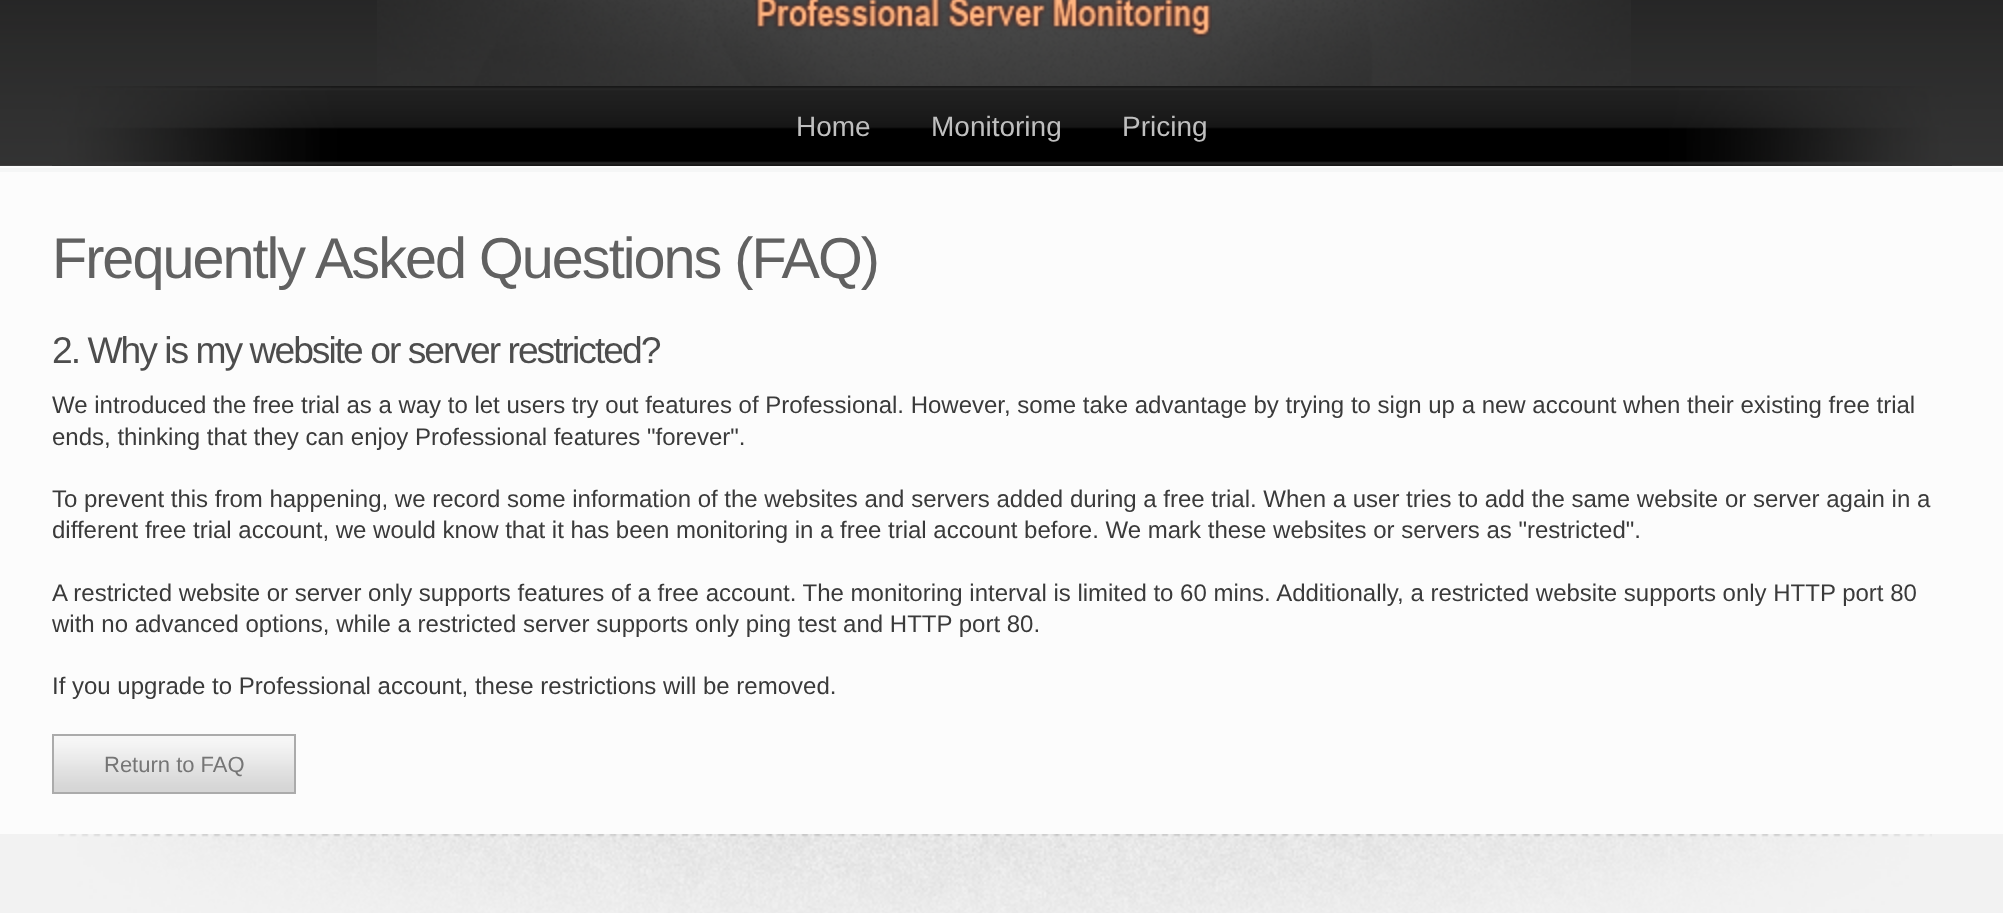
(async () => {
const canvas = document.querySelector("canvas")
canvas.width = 2003
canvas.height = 913
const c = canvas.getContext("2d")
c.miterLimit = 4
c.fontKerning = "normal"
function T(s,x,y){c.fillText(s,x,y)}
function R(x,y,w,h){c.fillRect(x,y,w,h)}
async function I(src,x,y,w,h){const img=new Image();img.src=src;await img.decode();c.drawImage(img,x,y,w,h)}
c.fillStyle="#f2f2f2"
R(0,0,2003,913)
await I("1.png",0,0,2003,166)
await I("2.png",377,0,1254,86)
await I("3.png",755,0,457,38)
await I("4.png",52,86,1900,80)
c.font="28px Liberation Sans"
c.fillStyle="#bfbfbf"
T("Home",796,136)
T("Monitoring",931,136)
T("Pricing",1122,136)
c.fillStyle="#fcfcfc"
R(0,166,2003,668)
c.fillStyle="#f5f6f6"
R(0,168,2003,4)
c.letterSpacing="-2px"
c.font="57.6px Liberation Sans"
c.fillStyle="#616161"
T("Frequently Asked Questions (FAQ)",52,278)
c.font="37.25px Liberation Sans"
c.fillStyle="#4d4d4d"
T("2. Why is my website or server restricted?",52,363)
c.letterSpacing="0px"
c.font="24px Liberation Sans"
c.fillStyle="#3a3a3a"
T("We introduced the free trial as a way to let users try out features of Professional. However, some take advantage by trying to sign up a new account when their existing free trial",52,413)
T("ends, thinking that they can enjoy Professional features \"forever\".",52,445)
T("To prevent this from happening, we record some information of the websites and servers added during a free trial. When a user tries to add the same website or server again in a",52,507)
T("different free trial account, we would know that it has been monitoring in a free trial account before. We mark these websites or servers as \"restricted\".",52,538)
T("A restricted website or server only supports features of a free account. The monitoring interval is limited to 60 mins. Additionally, a restricted website supports only HTTP port 80",52,601)
T("with no advanced options, while a restricted server supports only ping test and HTTP port 80.",52,632)
T("If you upgrade to Professional account, these restrictions will be removed.",52,694)
await I("5.png",54,736,240,56)
c.strokeStyle="#ababab"
c.lineWidth=2
c.strokeRect(53,735,242,58)
c.font="22px Liberation Sans"
c.fillStyle="#757575"
T("Return to FAQ",104,772)
await I("6.png",58,834,1874,79)
})()
